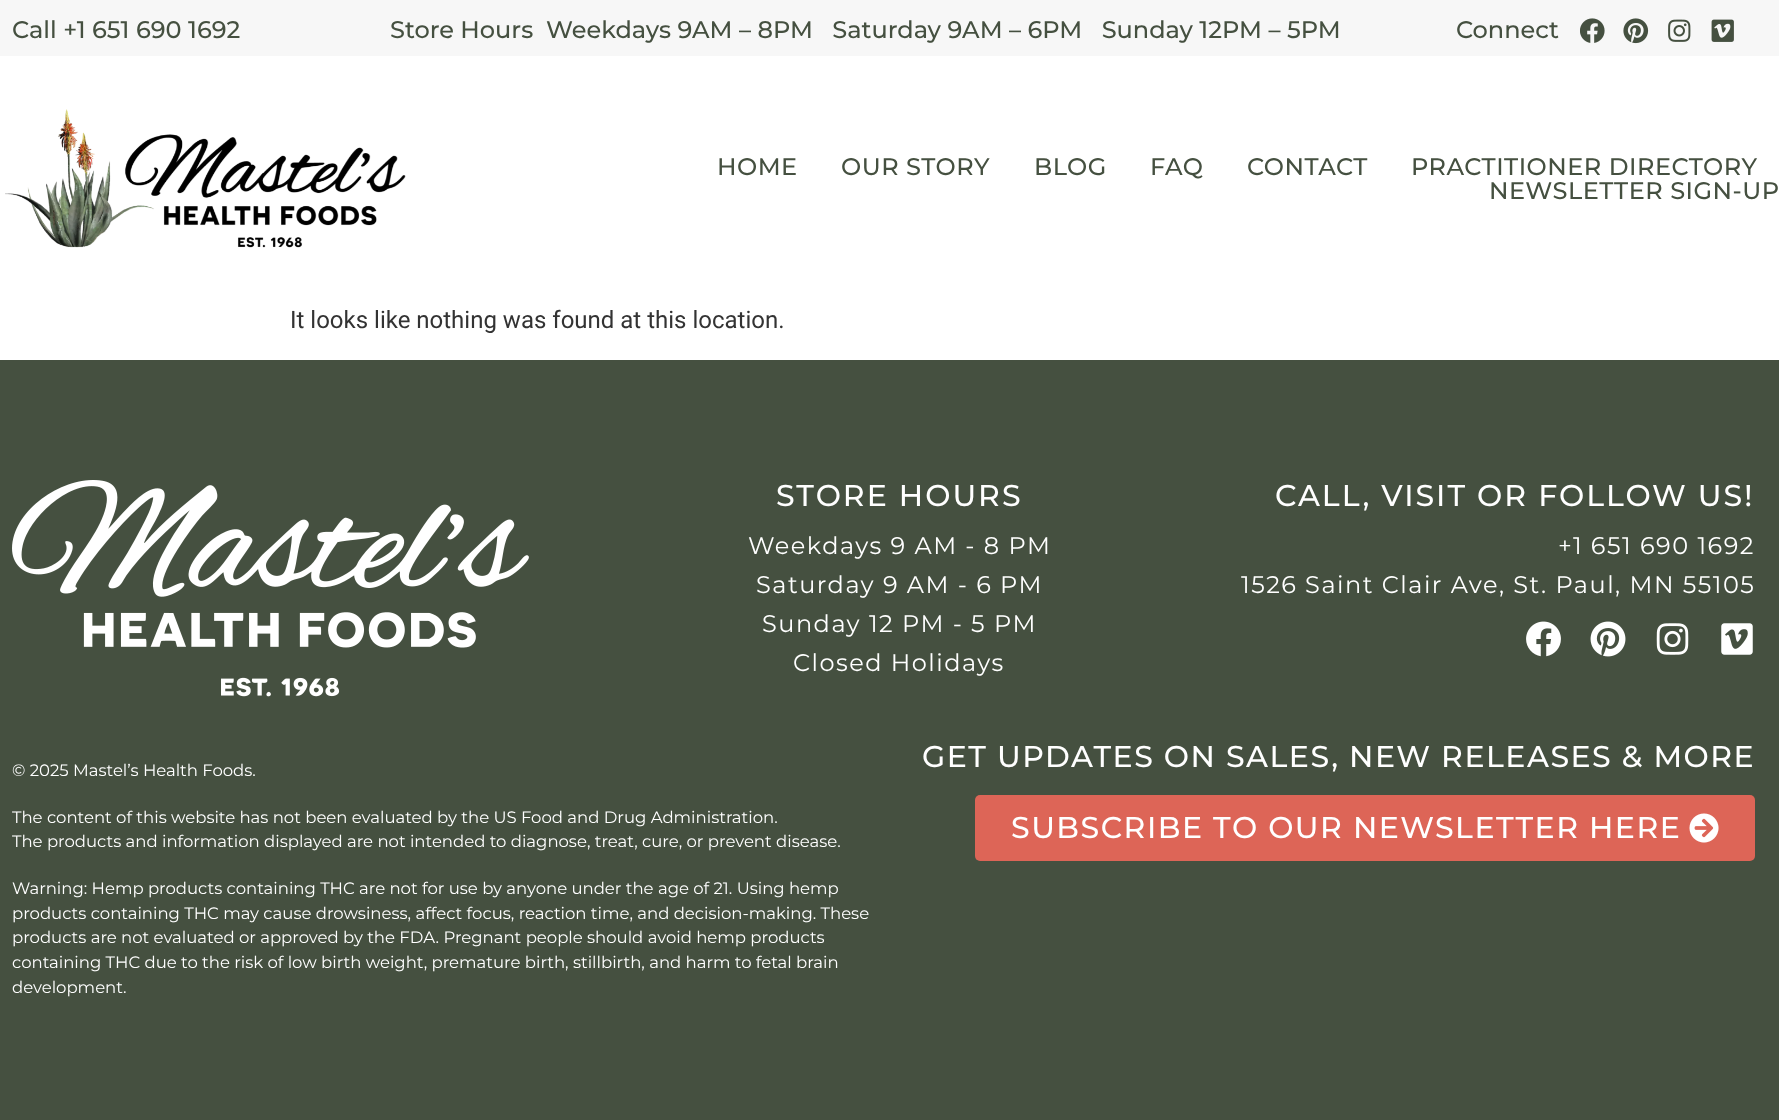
(async () => {
const canvas = document.querySelector("canvas")
canvas.width = 1779
canvas.height = 1120
const c = canvas.getContext("2d")
c.miterLimit = 4
c.fontKerning = "normal"
function T(s,x,y){c.fillText(s,x,y)}
function R(x,y,w,h){c.fillRect(x,y,w,h)}
function Q(x,y,w,h,r){c.beginPath();c.roundRect(x,y,w,h,r);c.fill()}
async function I(src,x,y,w,h){const img=new Image();img.src=src;await img.decode();c.drawImage(img,x,y,w,h)}
c.fillStyle="#fff"
R(0,0,1779,1120)
c.fillStyle="#f7f7f7"
R(0,0,1779,56)
c.font="500 24px Montserrat"
c.fillStyle="#455040"
T("Call +1 651 690 1692",12,38)
T("Store Hours  Weekdays 9AM – 8PM   Saturday 9AM – 6PM   Sunday 12PM – 5PM",390,38)
T("Connect",1456,38)
await I("1.png",1580,18,25,25)
await I("2.png",1623,18,26,26)
await I("3.png",1668,19,23,23)
await I("4.png",1711,19,23,23)
await I("5.png",5,109,401,139)
c.letterSpacing="0.5px"
T("HOME",717,175)
T("OUR STORY",841,175)
T("BLOG",1034,175)
T("FAQ",1150,175)
T("CONTACT",1247,175)
T("PRACTITIONER DIRECTORY",1411,175)
T("NEWSLETTER SIGN-UP",1489,199)
c.letterSpacing="0px"
c.font="24px Roboto"
c.fillStyle="#333"
T("It looks like nothing was found at this location.",290,328)
c.fillStyle="#455040"
R(0,360,1779,760)
await I("6.png",12,480,517,217)
c.letterSpacing="2px"
c.font="500 30px Montserrat"
c.fillStyle="#fff"
T("STORE HOURS",776,506)
c.letterSpacing="1.5px"
c.font="24px Montserrat"
T("Weekdays 9 AM - 8 PM",748,554)
T("Saturday 9 AM - 6 PM",756,593)
T("Sunday 12 PM - 5 PM",762,632)
T("Closed Holidays",793,671)
c.letterSpacing="2px"
c.font="500 30px Montserrat"
T("CALL, VISIT OR FOLLOW US!",1275,506)
c.letterSpacing="1.5px"
c.font="24px Montserrat"
T("+1 651 690 1692",1558,554)
T("1526 Saint Clair Ave, St. Paul, MN 55105",1241,593)
await I("7.png",1526,621,35,36)
await I("8.png",1590,621,36,36)
await I("9.png",1656,623,33,32)
await I("10.png",1721,623,32,32)
c.letterSpacing="0px"
c.font="16.5px Montserrat"
T("© 2025 Mastel’s Health Foods.",12,776)
T("The content of this website has not been evaluated by the US Food and Drug Administration.",12,823)
T("The products and information displayed are not intended to diagnose, treat, cure, or prevent disease.",12,847)
T("Warning: Hemp products containing THC are not for use by anyone under the age of 21. Using hemp",12,894)
T("products containing THC may cause drowsiness, affect focus, reaction time, and decision-making. These",12,919)
T("products are not evaluated or approved by the FDA. Pregnant people should avoid hemp products",12,943)
T("containing THC due to the risk of low birth weight, premature birth, stillbirth, and harm to fetal brain",12,968)
T("development.",12,993)
c.letterSpacing="1.5px"
c.font="500 30px Montserrat"
T("GET UPDATES ON SALES, NEW RELEASES & MORE",922,767)
c.fillStyle="#dd6557"
Q(975,795,780,66,5)
c.fillStyle="#fff"
T("SUBSCRIBE TO OUR NEWSLETTER HERE",1011,838)
await I("11.png",1689,813,30,30)
})()
